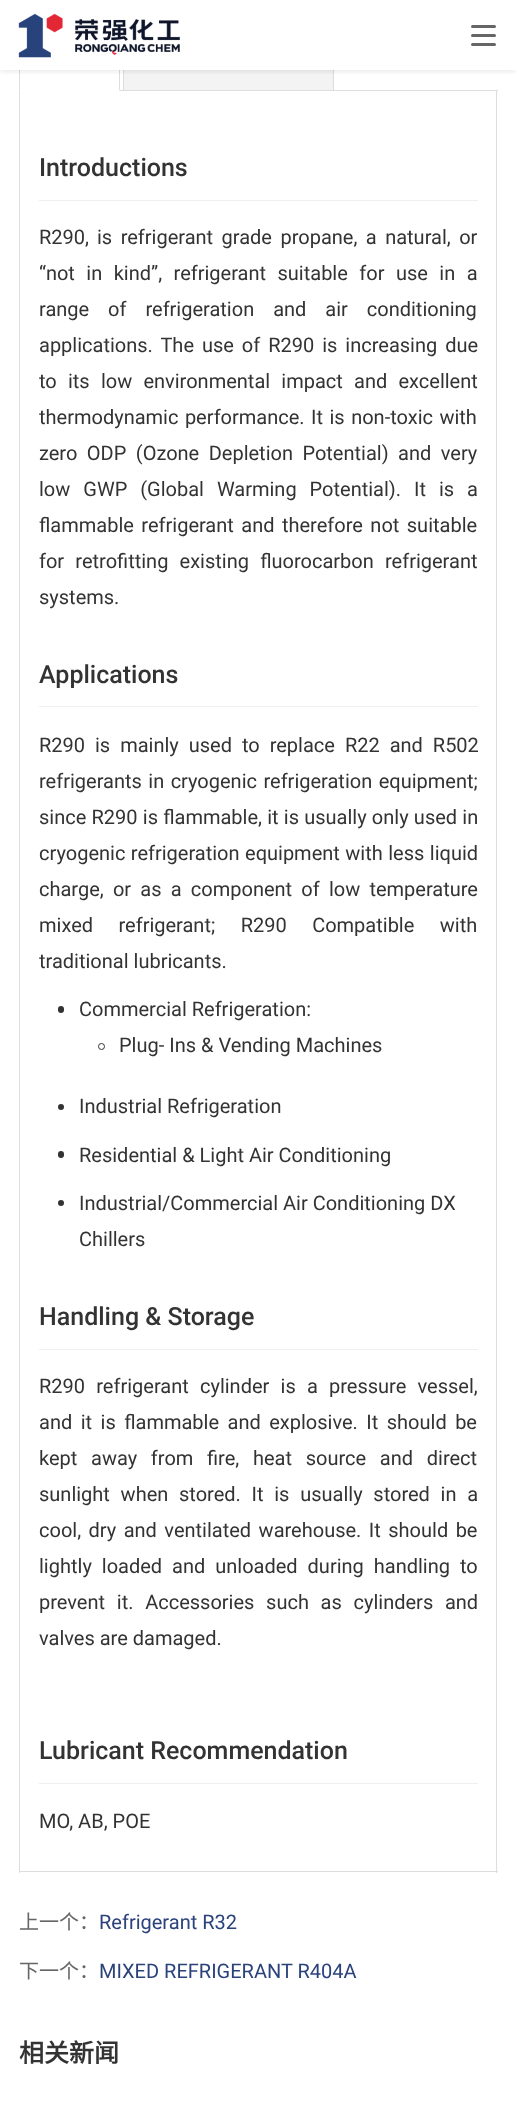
(async () => {
const canvas = document.querySelector("canvas")
canvas.width = 516
canvas.height = 2116
const c = canvas.getContext("2d")
c.miterLimit = 4
c.fontKerning = "normal"
function T(s,x,y){c.fillText(s,x,y)}
function R(x,y,w,h){c.fillRect(x,y,w,h)}
function Q(x,y,w,h,r){c.beginPath();c.roundRect(x,y,w,h,r);c.fill()}
async function I(src,x,y,w,h){const img=new Image();img.src=src;await img.decode();c.drawImage(img,x,y,w,h)}
let path
c.fillStyle="#fff"
R(0,0,516,2116)
c.fillStyle="#ddd"
R(19,35,101,1)
path = new Path2D("M120 35v56l-1-1v-54z")
c.fill(path)
path = new Path2D("M19 91v-56l1 1v54z")
c.fill(path)
R(120,90,378,1)
c.fillStyle="#f3f3f3"
c.beginPath()
c.rect(123.5,35.5,210,55)
c.fill()
c.strokeStyle="#ddd"
c.stroke()
c.save()
c.beginPath()
c.rect(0,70,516,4)
c.clip()
c.fillStyle="#0000001a"
c.filter="blur(3px)"
c.beginPath()
c.rect(0,1,516,70)
c.fill()
c.filter="none"
c.restore()
c.fillStyle="#fffffff7"
R(19,35,315,35)
await I("1.png",18,13,162,45)
c.fillStyle="#666"
Q(471,25,25,3,1.5)
Q(471,34,25,3,1.5)
Q(471,43,25,3,1.5)
c.fillStyle="#ddd"
R(496,91,1,1782)
R(19,1871,479,1)
R(19,91,1,1782)
c.fillStyle="#efefef"
R(39,200,439,1)
c.font="500 25px Roboto"
c.fillStyle="#333"
T("Introductions",39,176)
c.font="20px Roboto"
T("R290,",39,244)
c.wordSpacing="3.5px"
T("is refrigerant grade propane, a natural, or",97,244)
c.wordSpacing="6.5px"
T("“not in kind”, refrigerant suitable for use in a",39,280)
c.wordSpacing="14px"
T("range of refrigeration and air conditioning",39,316)
c.wordSpacing="3px"
T("applications. The use of R290 is increasing due",39,352)
c.wordSpacing="6.25px"
T("to its low environmental impact and excellent",39,388)
c.wordSpacing="1.5px"
T("thermodynamic performance. It is non-toxic with",39,424)
c.wordSpacing="4.5px"
T("zero ODP (Ozone Depletion Potential) and very",39,460)
c.wordSpacing="8px"
T("low GWP (Global Warming Potential). It is a",39,496)
c.wordSpacing="2.5px"
T("flammable refrigerant and therefore not suitable",39,532)
c.wordSpacing="6.25px"
T("for retrofitting existing fluorocarbon refrigerant",39,568)
c.wordSpacing="0px"
T("systems.",39,604)
c.fillStyle="#efefef"
R(39,706,439,1)
c.font="500 25px Roboto"
c.fillStyle="#333"
T("Applications",39,683)
c.wordSpacing="5px"
c.font="20px Roboto"
T("R290 is mainly used to replace R22 and R502",39,752)
c.wordSpacing="1.5px"
T("refrigerants in cryogenic refrigeration equipment;",39,788)
c.wordSpacing="0.25px"
T("since R290 is flammable, it is usually only used in",39,824)
c.wordSpacing="0.5px"
T("cryogenic refrigeration equipment with less liquid",39,860)
c.wordSpacing="4.25px"
T("charge, or as a component of low temperature",39,896)
c.wordSpacing="20.5px"
T("mixed refrigerant; R290 Compatible with",39,932)
c.wordSpacing="0px"
T("traditional lubricants.",39,968)
Q(58,1006,6,7,3)
T("Commercial Refrigeration:",79,1016)
c.beginPath()
c.arc(101.5,1046.5,3,0,7)
c.strokeStyle="#333"
c.stroke()
T("Plug- Ins & Vending Machines",119,1052)
c.beginPath()
c.arc(61,1107,3,0,7)
c.fill()
T("Industrial Refrigeration",79,1113)
Q(58,1151,6,7,3)
T("Residential & Light Air Conditioning",79,1162)
c.beginPath()
c.arc(61,1203,3,0,7)
c.fill()
T("Industrial/Commercial Air Conditioning DX",79,1210)
T("Chillers",79,1246)
c.fillStyle="#efefef"
R(39,1349,439,1)
c.font="500 25px Roboto"
c.fillStyle="#333"
T("Handling & Storage",39,1325)
c.wordSpacing="6.25px"
c.font="20px Roboto"
T("R290 refrigerant cylinder is a pressure vessel,",39,1393)
c.wordSpacing="3.5px"
T("and it is flammable and explosive. It should be",39,1429)
c.wordSpacing="8.75px"
T("kept away from fire, heat source and direct",39,1465)
c.wordSpacing="5.75px"
T("sunlight when stored. It is usually stored in a",39,1501)
c.wordSpacing="2.5px"
T("cool, dry and ventilated warehouse. It should be",39,1537)
c.wordSpacing="5px"
T("lightly loaded and unloaded during handling to",39,1573)
c.wordSpacing="6.75px"
T("prevent it. Accessories such as cylinders and",39,1609)
c.wordSpacing="0px"
T("valves are damaged.",39,1645)
c.fillStyle="#efefef"
R(39,1783,439,1)
c.font="500 25px Roboto"
c.fillStyle="#333"
T("Lubricant Recommendation",39,1759)
c.font="20px Roboto"
T("MO, AB, POE",39,1828)
c.font="20px Noto Sans CJK SC"
c.fillStyle="#666"
T("上一个：",19,1929)
c.font="20px Roboto"
c.fillStyle="#2b427b"
T("Refrigerant R32",99,1929)
c.font="20px Noto Sans CJK SC"
c.fillStyle="#666"
T("下一个：",19,1978)
c.font="20px Roboto"
c.fillStyle="#2b427b"
T("MIXED REFRIGERANT R404A",99,1978)
c.font="bold 25px Noto Sans CJK SC"
c.fillStyle="#333"
T("相关新闻",19,2062)
})()
